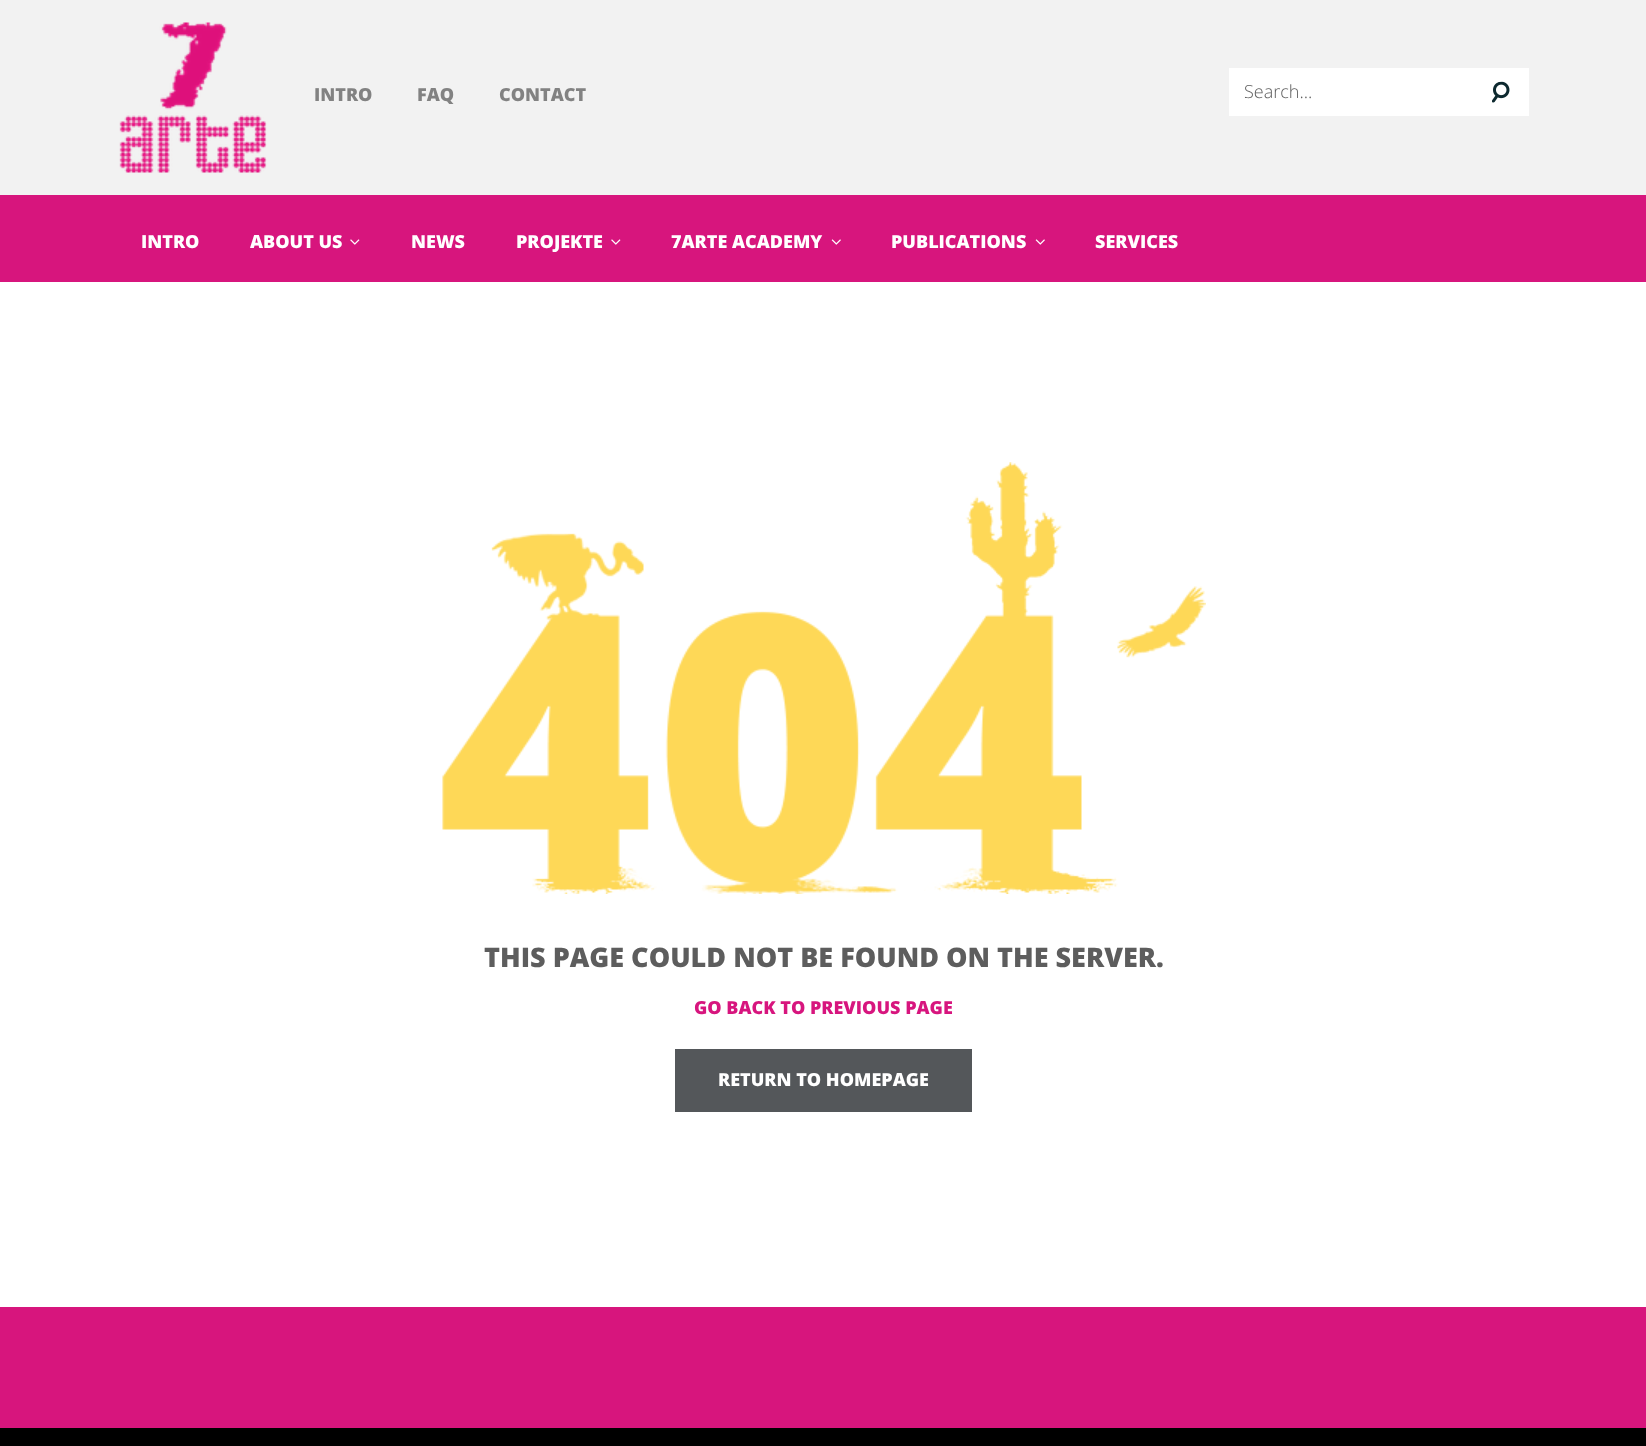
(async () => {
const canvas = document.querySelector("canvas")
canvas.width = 1646
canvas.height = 1446
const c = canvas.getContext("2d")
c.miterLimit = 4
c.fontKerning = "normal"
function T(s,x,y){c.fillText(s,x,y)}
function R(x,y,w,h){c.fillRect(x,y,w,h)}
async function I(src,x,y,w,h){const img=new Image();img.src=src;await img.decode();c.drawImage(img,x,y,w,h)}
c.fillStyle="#fff"
R(0,0,1646,1446)
c.fillStyle="#f2f2f2"
R(0,0,1646,195)
await I("1.png",119,22,148,151)
c.font="800 18px Open Sans"
c.fillStyle="#828282"
T("INTRO",314,101)
T("FAQ",417,101)
T("CONTACT",499,101)
c.fillStyle="#fff"
R(1229,68,300,48)
await I("2.png",1492,81,18,22)
c.font="300 18px Open Sans"
c.fillStyle="#5d5d5d"
T("Search...",1244,98)
c.fillStyle="#d7157d"
R(0,195,1646,87)
c.font="800 18px Open Sans"
c.fillStyle="#fff"
T("INTRO",141,248)
T("ABOUT US",250,248)
await I("3.png",350,239,10,6)
T("NEWS",411,248)
T("PROJEKTE",516,248)
await I("3.png",611,239,10,6)
T("7ARTE ACADEMY",671,248)
await I("4.png",831,239,10,6)
T("PUBLICATIONS",891,248)
await I("4.png",1035,239,10,6)
T("SERVICES",1095,248)
await I("5.png",442,462,764,432)
c.font="800 27px Open Sans"
c.fillStyle="#5d5d5d"
T("THIS PAGE COULD NOT BE FOUND ON THE SERVER.",484,967)
c.font="800 18px Open Sans"
c.fillStyle="#d7157e"
T("GO BACK TO PREVIOUS PAGE",694,1014)
c.fillStyle="#54575a"
R(675,1049,297,63)
c.fillStyle="#fff"
T("RETURN TO HOMEPAGE",718,1086)
c.fillStyle="#d7157d"
R(0,1307,1646,121)
c.fillStyle="#000"
R(0,1428,1646,18)
})()
